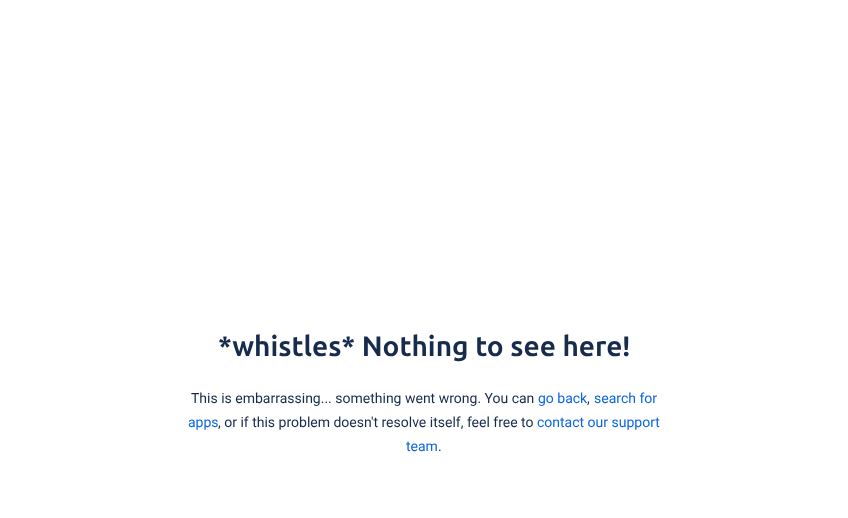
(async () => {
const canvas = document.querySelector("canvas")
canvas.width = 848
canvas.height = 518
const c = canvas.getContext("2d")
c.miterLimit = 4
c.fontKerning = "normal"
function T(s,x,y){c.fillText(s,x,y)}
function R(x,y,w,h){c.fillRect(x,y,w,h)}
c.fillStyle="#fff"
R(0,0,848,518)
c.font="bold 28px Ubuntu"
c.fillStyle="#172b4d"
T("*whistles* Nothing to see here!",218,356)
c.font="14px Roboto"
T("This is embarrassing... something went wrong. You can",191,403)
c.fillStyle="#0c66e4"
T("go back",538,403)
c.fillStyle="#172b4d"
T(",",587,403)
c.fillStyle="#0c66e4"
T("search for",594,403)
T("apps",188,427)
c.fillStyle="#172b4d"
T(", or if this problem doesn't resolve itself, feel free to",218,427)
c.fillStyle="#0c66e4"
T("contact our support",537,427)
T("team",406,451)
c.fillStyle="#172b4d"
T(".",438,451)
})()
